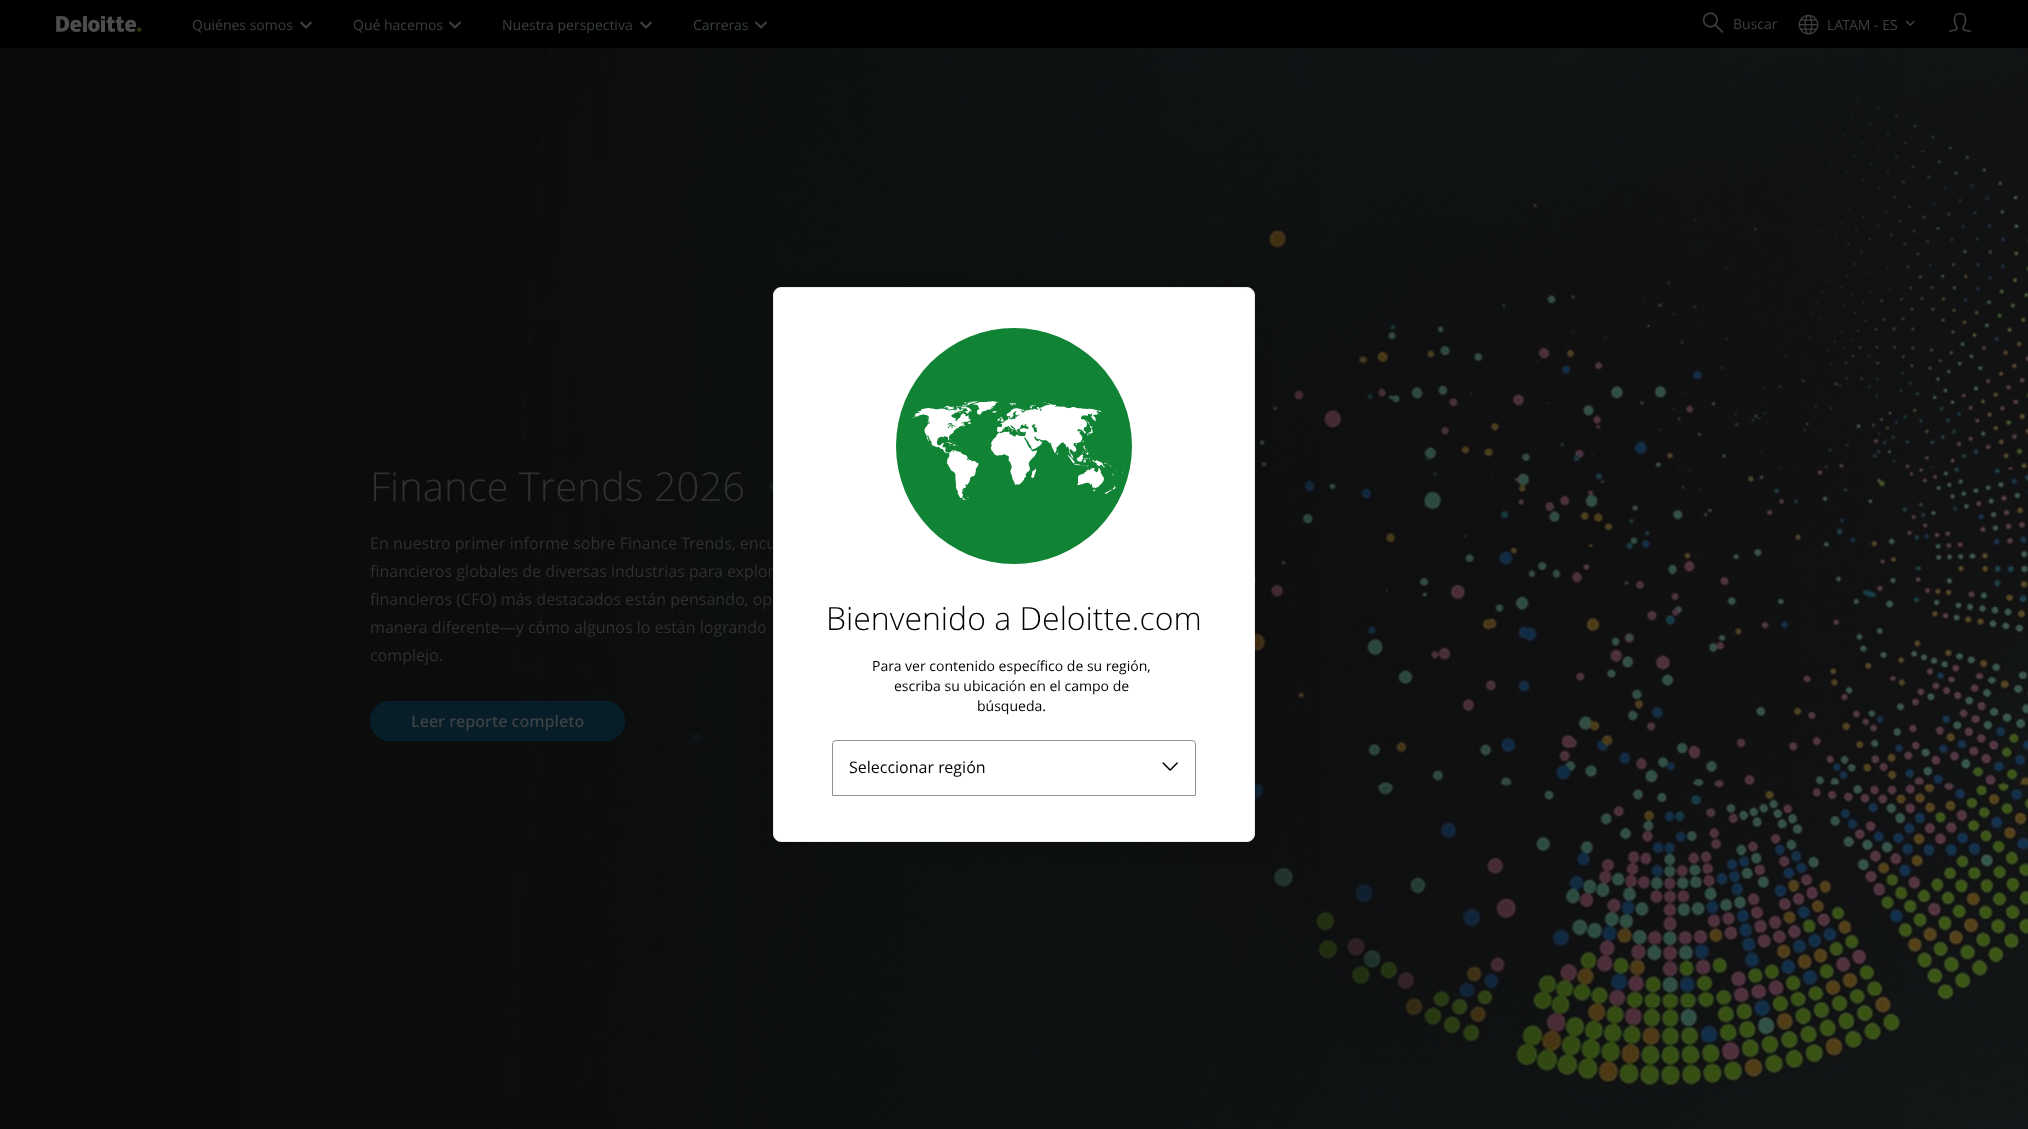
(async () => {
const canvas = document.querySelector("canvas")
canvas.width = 2028
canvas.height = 1129
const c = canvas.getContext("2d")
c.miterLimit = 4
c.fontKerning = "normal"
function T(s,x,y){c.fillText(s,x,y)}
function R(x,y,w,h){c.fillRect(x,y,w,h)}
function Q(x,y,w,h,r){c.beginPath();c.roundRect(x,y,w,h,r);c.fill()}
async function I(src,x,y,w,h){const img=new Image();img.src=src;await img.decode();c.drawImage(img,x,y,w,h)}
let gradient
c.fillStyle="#fff"
R(0,0,2028,1129)
c.fillStyle="#000"
R(0,0,2028,48)
await I("1.png",56,16,86,16)
c.font="14px Open Sans"
c.fillStyle="#3a4043"
T("Quiénes somos",192,30)
await I("2.png",300,21,12,8)
T("Qué hacemos",353,30)
await I("2.png",449,21,12,8)
T("Nuestra perspectiva",502,30)
await I("2.png",640,21,12,8)
T("Carreras",693,30)
await I("2.png",755,21,12,8)
await I("3.png",1702,12,22,21)
T("Buscar",1733,29)
await I("4.png",1798,14,21,21)
T("LATAM - ES",1827,30)
await I("5.png",1905,20,10,6)
await I("6.png",1948,12,24,21)
await I("7.png",0,48,2028,1081)
await I("8.png",0,48,2028,1081)
gradient = c.createLinearGradient(0,565,2028,564)
gradient.addColorStop(0,"#0000007a")
gradient.addColorStop(1,"#00000000")
c.fillStyle = gradient
R(0,48,1904,1081)
c.font="300 40px Open Sans"
c.fillStyle="#2f302f"
T("Finance Trends 2026",370,501)
c.font="16px Open Sans"
T("En nuestro primer informe sobre Finance Trends, encu",370,549)
T("financieros globales de diversas industrias para explor",370,577)
T("financieros (CFO) más destacados están pensando, op",370,605)
T("manera diferente—y cómo algunos lo están logrando",370,633)
T("complejo.",370,661)
c.fillStyle="#052332bd"
Q(370,701,255,40,20)
c.beginPath()
c.roundRect(370.5,701.5,254,39,19.5)
c.strokeStyle="#052332bd"
c.stroke()
c.font="600 16px Open Sans"
c.fillStyle="#3a4043"
T("Leer reporte completo",411,727)
c.fillStyle="#00000029"
c.filter="blur(8px)"
c.beginPath()
c.roundRect(773,290,482,555,8)
c.fill()
c.filter="none"
c.fillStyle="#fff"
c.beginPath()
c.roundRect(773.5,287.5,481,554,7.5)
c.fill()
c.strokeStyle="#ededed"
c.stroke()
await I("9.png",896,328,236,236)
c.font="300 32px Open Sans"
c.fillStyle="#000"
T("Bienvenido a Deloitte.com",826,630)
c.font="14px Open Sans"
T("Para ver contenido específico de su región,",872,671)
T("escriba su ubicación en el campo de",894,691)
T("búsqueda.",977,711)
c.beginPath()
c.roundRect(832.5,740.5,363,55,[3.5,3.5,0,0])
c.strokeStyle="#8e9092"
c.stroke()
c.font="16px Open Sans"
T("Seleccionar región",849,773)
await I("10.png",1162,762,16,9)
})()
